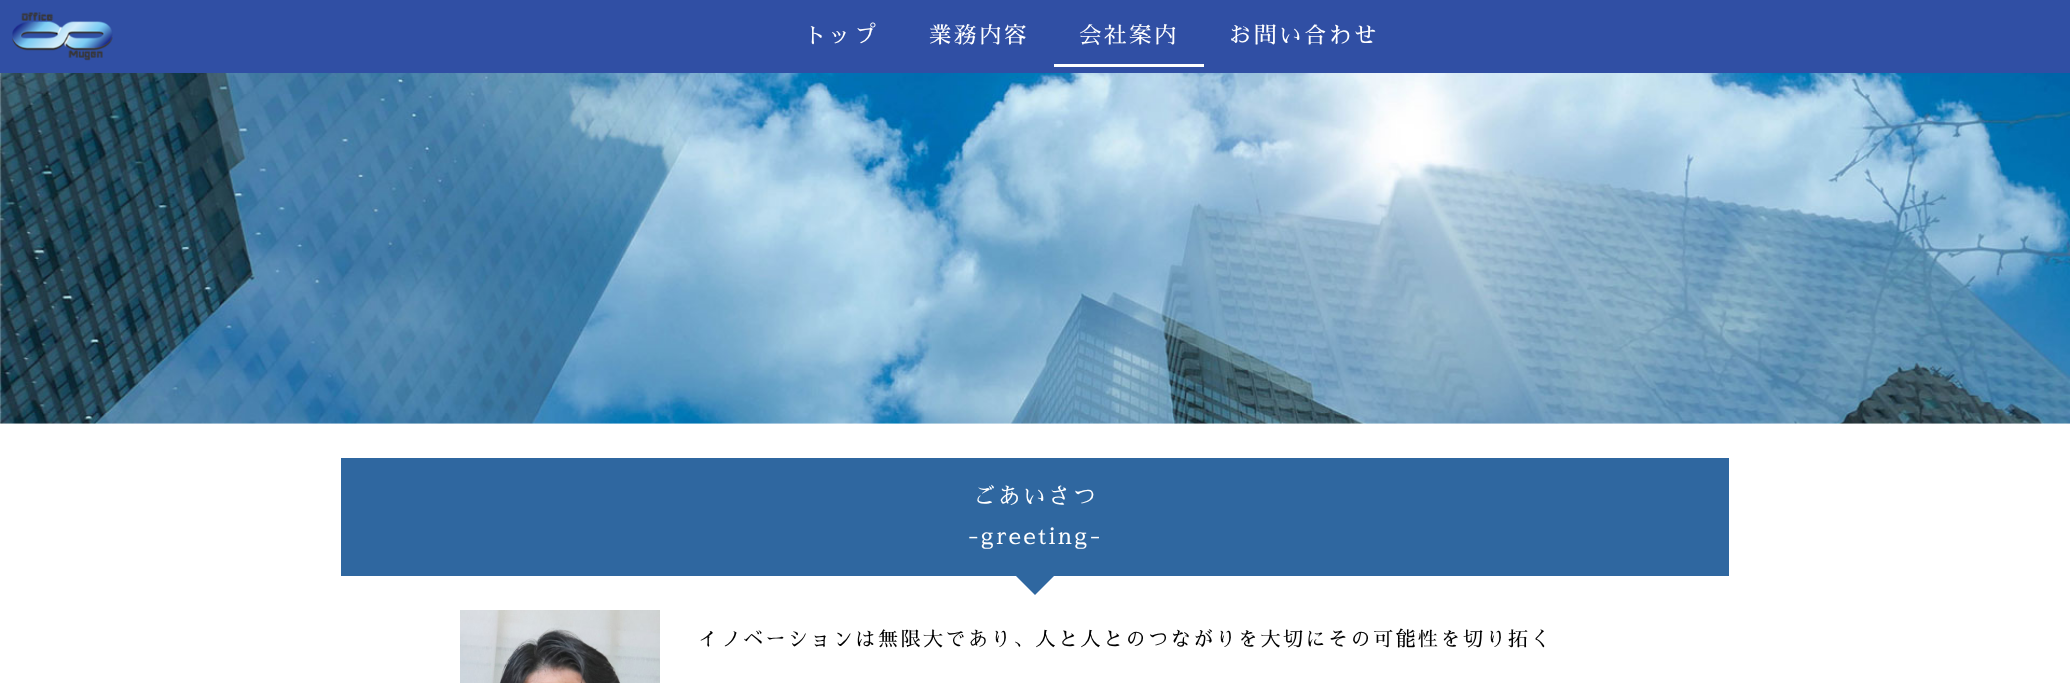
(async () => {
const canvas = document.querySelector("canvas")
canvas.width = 2070
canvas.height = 683
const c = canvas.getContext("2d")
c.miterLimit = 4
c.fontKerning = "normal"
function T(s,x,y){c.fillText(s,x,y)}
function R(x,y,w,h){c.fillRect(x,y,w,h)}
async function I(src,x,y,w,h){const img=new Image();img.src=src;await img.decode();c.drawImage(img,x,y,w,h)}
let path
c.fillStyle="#fff"
R(0,0,2070,683)
c.fillStyle="#304fa4"
R(0,0,2070,73)
await I("1.png",12,12,101,49)
c.letterSpacing="2.5px"
c.font="22.5px Sawarabi Mincho"
c.fillStyle="#fff"
T("トップ",804,43)
T("業務内容",929,43)
R(1054,64,150,3)
T("会社案内",1079,43)
T("お問い合わせ",1229,43)
await I("2.png",0,73,2070,351)
c.fillStyle="#2f67a0"
R(341,458,1388,118)
c.fillStyle="#fff"
T("ごあいさつ",973,504)
T("-greeting-",968,544)
c.fillStyle="#2f67a0"
path = new Path2D("M1016 576h38l-19 19z")
c.fill(path)
await I("3.png",460,610,200,73)
c.font="20px Sawarabi Mincho"
c.fillStyle="#000"
T("イノベーションは無限大であり、人と人とのつながりを大切にその可能性を切り拓く",698,646)
})()
